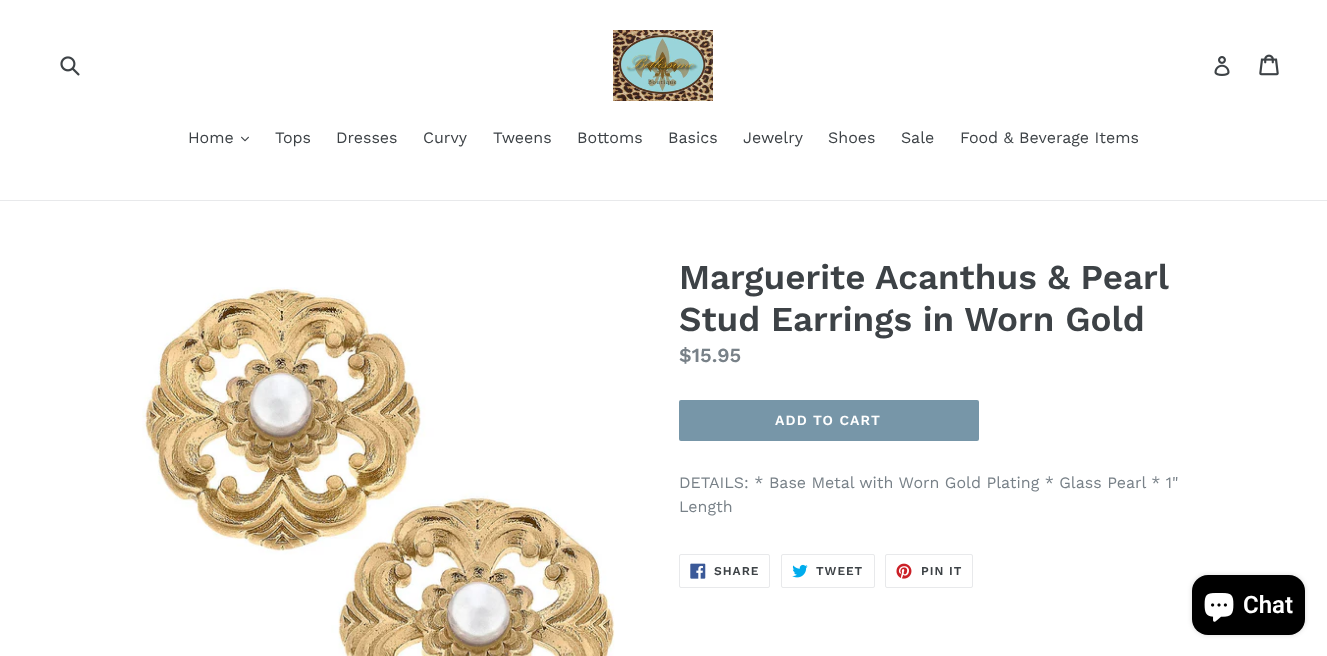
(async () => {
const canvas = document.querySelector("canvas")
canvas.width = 1327
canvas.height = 656
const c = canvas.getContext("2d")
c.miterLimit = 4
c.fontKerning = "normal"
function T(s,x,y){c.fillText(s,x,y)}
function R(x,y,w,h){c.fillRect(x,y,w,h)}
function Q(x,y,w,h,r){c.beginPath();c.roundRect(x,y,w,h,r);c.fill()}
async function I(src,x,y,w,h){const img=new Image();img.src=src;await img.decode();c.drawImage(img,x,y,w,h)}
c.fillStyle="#fff"
R(0,0,1327,656)
await I("1.png",60,56,20,20)
await I("2.png",613,30,100,71)
await I("3.png",1214,56,16,20)
await I("4.png",1259,54,20,22)
c.fillStyle="#e8e9eb"
R(0,200,1327,1)
c.font="16px Work Sans"
c.fillStyle="#3d4246"
T("Home",188,143)
await I("5.png",241,136,8,6)
T("Tops",275,143)
T("Dresses",336,143)
T("Curvy",423,143)
T("Tweens",493,143)
T("Bottoms",577,143)
T("Basics",668,143)
T("Jewelry",743,143)
T("Shoes",828,143)
T("Sale",901,143)
T("Food & Beverage Items",960,143)
await I("6.png",142,287,473,369)
c.font="600 35px Work Sans"
T("Marguerite Acanthus & Pearl",679,289)
T("Stud Earrings in Worn Gold",679,331)
c.font="600 20px Work Sans"
c.fillStyle="#788188"
T("$15.95",679,362)
c.fillStyle="#7796a8"
Q(679,400,300,41,2)
c.letterSpacing="1.1px"
c.font="600 14px Work Sans"
c.fillStyle="#fff"
T("ADD TO CART",775,425)
c.letterSpacing="0px"
c.font="16px Work Sans"
c.fillStyle="#788188"
T("DETAILS: * Base Metal with Worn Gold Plating * Glass Pearl * 1\"",679,488)
T("Length",679,512)
c.beginPath()
c.roundRect(679.5,554.5,90,33,1.5)
c.strokeStyle="#e8e9eb"
c.stroke()
await I("7.png",690,563,16,16)
c.letterSpacing="1px"
c.font="600 12px Work Sans"
c.fillStyle="#3d4246"
T("SHARE",714,575)
c.beginPath()
c.roundRect(781.5,554.5,93,33,1.5)
c.stroke()
await I("8.png",792,564,16,14)
T("TWEET",816,575)
c.beginPath()
c.roundRect(885.5,554.5,87,33,1.5)
c.stroke()
await I("9.png",896,563,16,16)
T("PIN IT",921,575)
c.fillStyle="#00000026"
c.filter="blur(2.5px)"
c.beginPath()
c.roundRect(1192,575,113,60,16)
c.fill()
c.filter="none"
c.fillStyle="#000"
Q(1192,575,113,60,16)
await I("10.png",1204,593,30,29)
c.letterSpacing="0px"
c.font="600 24px Roboto"
c.fillStyle="#fff"
T("Chat",1243,613)
})()
